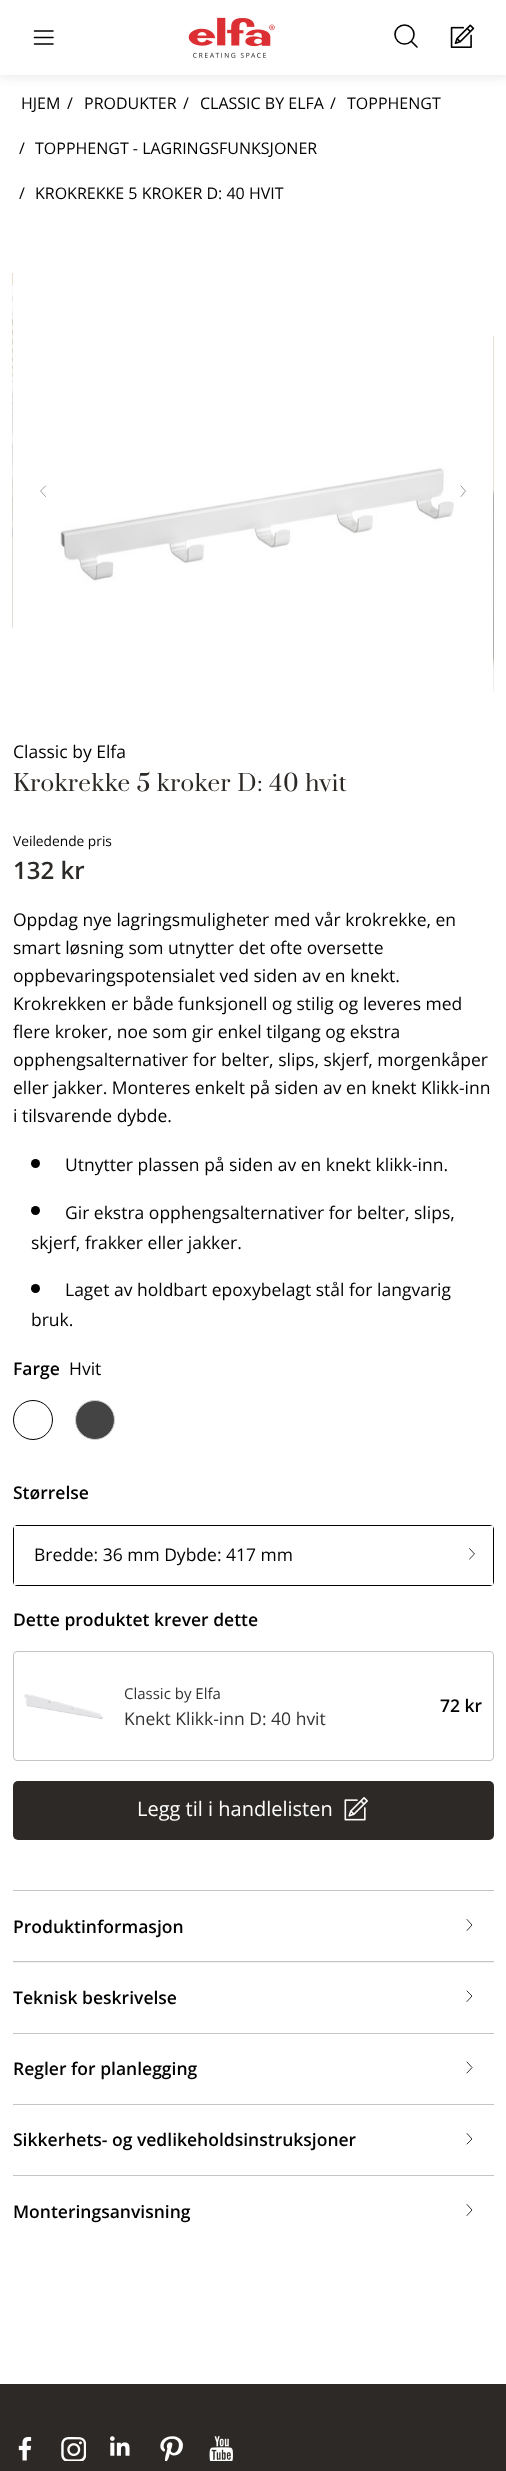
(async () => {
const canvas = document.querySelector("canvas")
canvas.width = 506
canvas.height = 2471
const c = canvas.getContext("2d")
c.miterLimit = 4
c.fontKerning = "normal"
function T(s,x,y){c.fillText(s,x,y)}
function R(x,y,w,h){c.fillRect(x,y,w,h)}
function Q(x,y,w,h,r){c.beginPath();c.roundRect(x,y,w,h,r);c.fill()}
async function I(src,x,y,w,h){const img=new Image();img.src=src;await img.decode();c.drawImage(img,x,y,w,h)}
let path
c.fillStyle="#2d2926"
R(0,0,506,2471)
c.fillStyle="#fff"
R(0,75,506,2309)
c.fillStyle="#0000001a"
c.filter="blur(6px)"
c.beginPath()
c.rect(-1,-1,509,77)
c.fill()
c.filter="none"
c.fillStyle="#fff"
R(0,0,506,75)
path = new Path2D("M34.5 31h18.5m-18.5 6.5h18.5m-18.5 6.5h18.5")
c.strokeStyle="#000"
c.lineWidth=1.6
c.lineCap="round"
c.lineJoin="round"
c.stroke(path)
await I("1.png",188,17,87,41)
c.beginPath()
c.arc(404.5,34.5,9.5,0,7)
c.stroke()
path = new Path2D("M411.5 41.5l5.5 5.5")
c.stroke(path)
await I("2.png",450,24,25,24)
c.font="16px Open Sans"
c.fillStyle="#000"
T("HJEM",21,109)
T("/",67,109)
T("PRODUKTER",84,109)
T("/",183,109)
T("CLASSIC BY ELFA",200,109)
T("/",330,109)
T("TOPPHENGT",347,109)
T("/",19,154)
T("TOPPHENGT - LAGRINGSFUNKSJONER",35,154)
T("/",19,199)
T("KROKREKKE 5 KROKER D: 40 HVIT",35,199)
await I("3.png",12,273,2,355)
await I("4.png",13,274,441,354)
await I("5.png",493,335,1,357)
path = new Path2D("M45.5 496.5l-5-5.5l5-5")
c.strokeStyle="#808080"
c.lineWidth=0.8
c.stroke(path)
path = new Path2D("M461 496.5l4.5-5.5l-4.5-5")
c.stroke(path)
c.font="17.5px Open Sans"
T("Classic by Elfa",13,758)
c.letterSpacing="0.6px"
c.font="22.5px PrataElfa"
c.fillStyle="#2d2926"
T("Krokrekke 5 kroker D: 40 hvit",13,791)
c.letterSpacing="0px"
c.font="13.75px Open Sans"
c.fillStyle="#000"
T("Veiledende pris",13,846)
c.font="600 24px Open Sans"
c.fillStyle="#2d2926"
T("132 kr",13,879)
c.font="17.5px Open Sans"
c.fillStyle="#000"
T("Oppdag nye lagringsmuligheter med vår krokrekke, en",13,926)
T("smart løsning som utnytter det ofte oversette",13,954)
T("oppbevaringspotensialet ved siden av en knekt.",13,982)
T("Krokrekken er både funksjonell og stilig og leveres med",13,1010)
T("flere kroker, noe som gir enkel tilgang og ekstra",13,1038)
T("opphengsalternativer for belter, slips, skjerf, morgenkåper",13,1066)
T("eller jakker. Monteres enkelt på siden av en knekt Klikk-inn",13,1094)
T("i tilsvarende dybde.",13,1122)
c.beginPath()
c.arc(35.5,1163.5,4.5,0,7)
c.fill()
T("Utnytter plassen på siden av en knekt klikk-inn.",65,1171)
c.beginPath()
c.arc(35.5,1210.5,4.5,0,7)
c.fill()
T("Gir ekstra opphengsalternativer for belter, slips,",65,1219)
T("skjerf, frakker eller jakker.",31,1249)
c.beginPath()
c.arc(35.5,1288.5,4.5,0,7)
c.fill()
T("Laget av holdbart epoxybelagt stål for langvarig",65,1296)
T("bruk.",31,1326)
c.font="600 17.5px Open Sans"
T("Farge",13,1375)
c.font="17.5px Open Sans"
T("Hvit",69,1375)
c.beginPath()
c.arc(33,1420,19.5,0,7)
c.strokeStyle="#000"
c.lineWidth=1
c.stroke()
c.fillStyle="#444"
c.beginPath()
c.arc(95,1420,19.5,0,7)
c.fill()
c.strokeStyle="#cfcdc9"
c.stroke()
c.font="600 17.5px Open Sans"
c.fillStyle="#000"
T("Størrelse",13,1499)
c.beginPath()
c.roundRect(13.5,1525.5,480,60,3.5)
c.strokeStyle="#000"
c.lineJoin="miter"
c.stroke()
c.fillStyle="#fff"
R(14,1526,479,59)
c.font="17.5px Open Sans"
c.fillStyle="#000"
T("Bredde: 36 mm Dybde: 417 mm",34,1561)
path = new Path2D("M469.5 1559l5-5l-5-5.5")
c.lineWidth=0.8
c.lineJoin="round"
c.stroke(path)
c.font="600 17.5px Open Sans"
T("Dette produktet krever dette",13,1626)
c.beginPath()
c.roundRect(13.5,1651.5,480,109,3.5)
c.strokeStyle="#c4c4c4"
c.lineWidth=1
c.lineJoin="miter"
c.stroke()
await I("6.png",24,1694,79,25)
c.font="15px Open Sans"
c.fillStyle="#333"
T("Classic by Elfa",124,1699)
c.font="17.5px Open Sans"
T("Knekt Klikk-inn D: 40 hvit",124,1725)
c.font="600 17.5px Open Sans"
c.fillStyle="#000"
T("72 kr",440,1712)
c.fillStyle="#2d2926"
Q(13,1781,481,59,5)
c.font="20px Open Sans"
c.fillStyle="#fff"
T("Legg til i handlelisten",137,1816)
await I("7.png",344,1797,24,24)
c.fillStyle="#c4c4c4"
R(13,1890,481,1)
c.font="600 17.5px Open Sans"
c.fillStyle="#000"
T("Produktinformasjon",13,1933)
path = new Path2D("M467 1930.5l5-5.5l-5-5.5")
c.strokeStyle="#000"
c.lineWidth=0.8
c.lineJoin="round"
c.stroke(path)
c.fillStyle="#f2f2f2"
R(13,1962,481,1)
c.fillStyle="#c4c4c4"
R(13,1961,481,1)
c.fillStyle="#000"
T("Teknisk beskrivelse",13,2004)
path = new Path2D("M467 2001.5l5-5.5l-5-5")
c.stroke(path)
c.fillStyle="#c4c4c4"
R(13,2033,481,1)
c.fillStyle="#000"
T("Regler for planlegging",13,2075)
path = new Path2D("M467 2073l5-5.5l-5-5.5")
c.stroke(path)
c.fillStyle="#c4c4c4"
R(13,2104,481,1)
c.fillStyle="#000"
T("Sikkerhets- og vedlikeholdsinstruksjoner",13,2146)
path = new Path2D("M467 2144l5-5l-5-5.5")
c.stroke(path)
c.fillStyle="#c4c4c4"
R(13,2175,481,1)
c.fillStyle="#000"
T("Monteringsanvisning",13,2218)
path = new Path2D("M467 2215.5l5-5.5l-5-5.5")
c.stroke(path)
await I("8.png",18,2437,14,24)
await I("9.png",61,2437,25,24)
await I("10.png",110,2436,20,20)
await I("11.png",160,2436,23,25)
await I("12.png",209,2436,24,25)
})()
